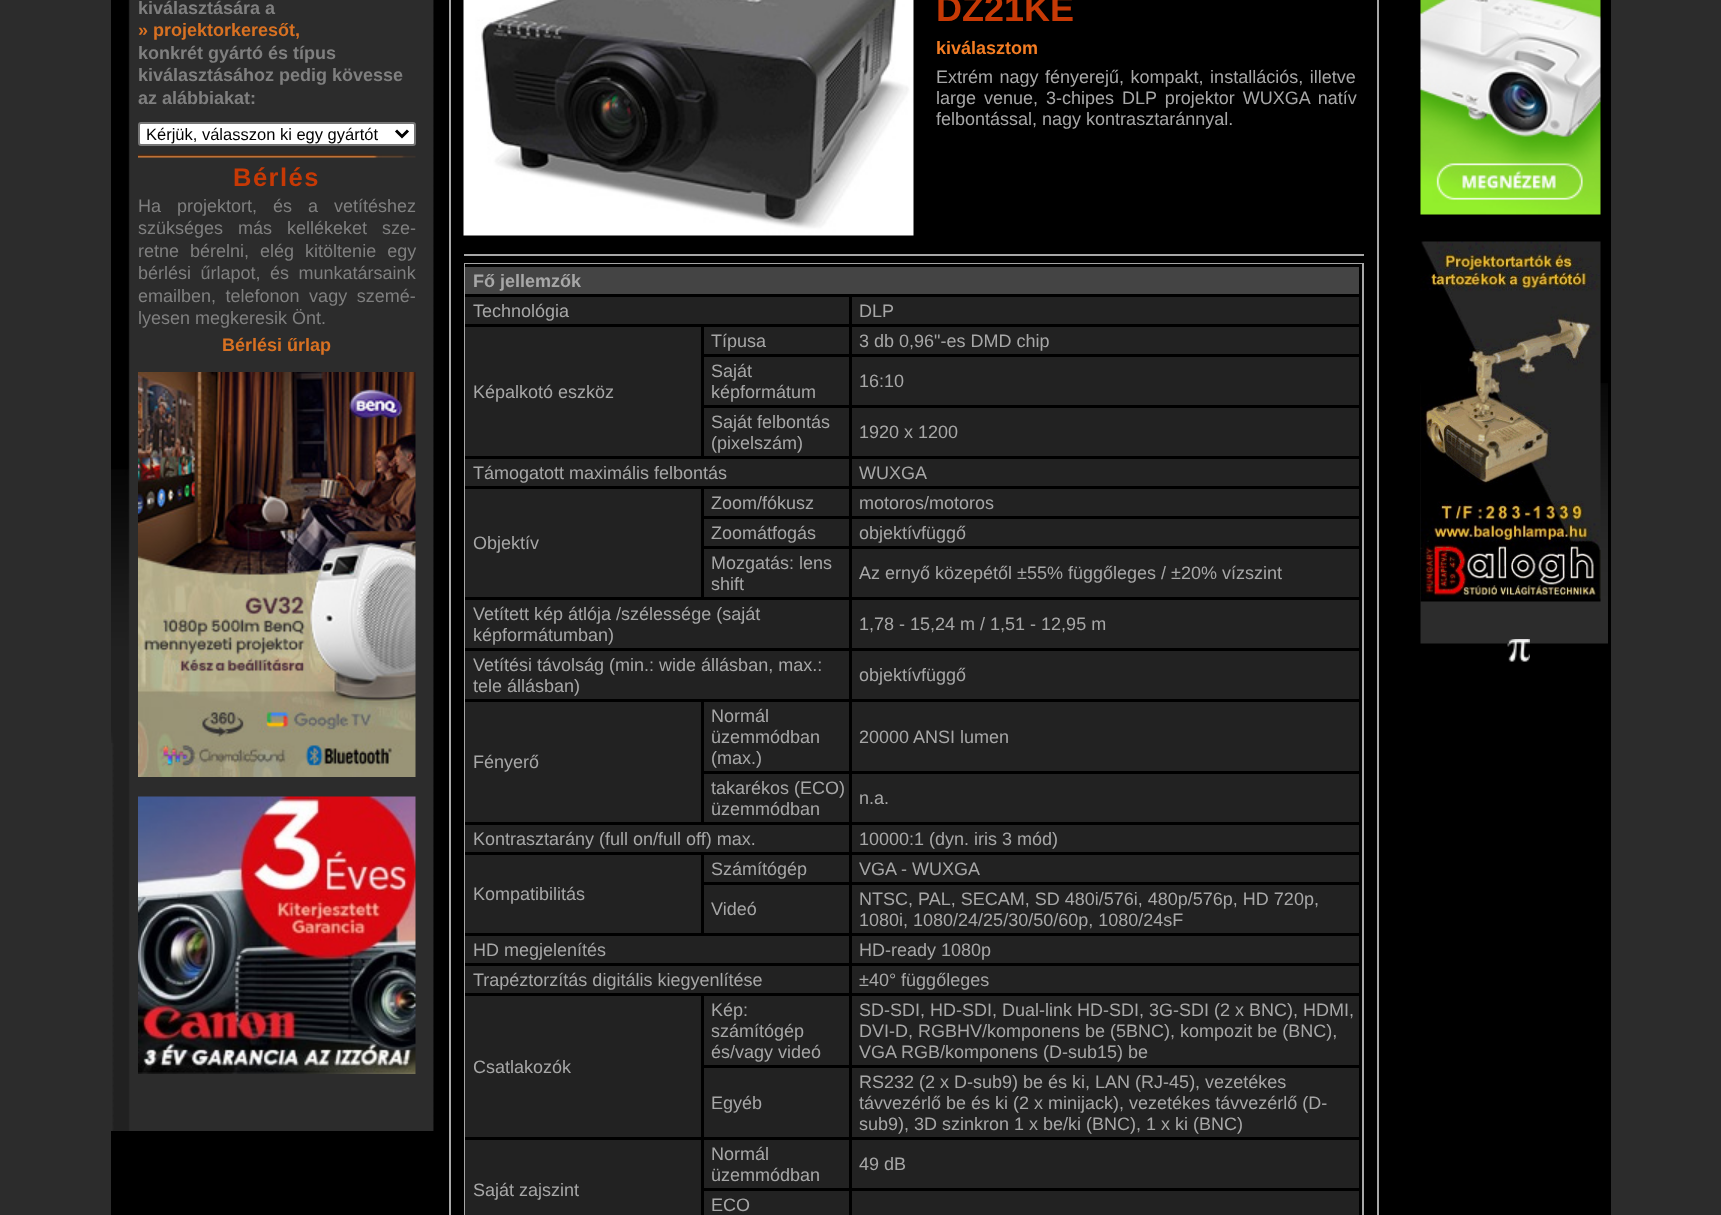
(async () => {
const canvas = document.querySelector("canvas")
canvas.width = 1721
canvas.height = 1215
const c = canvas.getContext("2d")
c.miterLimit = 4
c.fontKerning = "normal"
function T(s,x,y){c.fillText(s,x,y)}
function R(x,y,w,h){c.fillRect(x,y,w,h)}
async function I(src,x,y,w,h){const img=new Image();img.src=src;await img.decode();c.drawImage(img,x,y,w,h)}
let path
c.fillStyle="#2c2c2c"
R(0,0,1721,1215)
c.fillStyle="#000"
R(111,0,1500,1215)
await I("1.png",111,0,323,1131)
await I("2.png",111,0,19,743)
c.font="bold 18px Liberation Sans"
c.fillStyle="#7f7f7f"
T("kiválasztására a",138,14)
c.fillStyle="#d87122"
T("» projektorkeresőt,",138,36)
c.fillStyle="#7f7f7f"
T("konkrét gyártó és típus",138,59)
T("kiválasztásához pedig kövesse",138,81)
T("az alábbiakat:",138,104)
c.fillStyle="#fff"
c.beginPath()
c.roundRect(139,123,276,22,2)
c.fill()
c.strokeStyle="#767676"
c.lineWidth=2
c.stroke()
path = new Path2D("M396 130.5l6 6l6-6")
c.strokeStyle="#000"
c.lineWidth=3
c.stroke(path)
c.font="16.5px Liberation Sans"
c.fillStyle="#000"
T("Kérjük, válasszon ki egy gyártót",146,140)
await I("3.png",138,154,278,4)
c.letterSpacing="1.5px"
c.font="bold 25.5px Liberation Sans"
c.fillStyle="#c63905"
T("Bérlés",233,186)
c.letterSpacing="0px"
c.wordSpacing="11px"
c.font="18px Liberation Sans"
c.fillStyle="#7f7f7f"
T("Ha projektort, és a vetítéshez",138,212)
c.wordSpacing="10px"
T("szükséges más kellékeket sze-",138,234)
c.wordSpacing="6px"
T("retne bérelni, elég kitöltenie egy",138,257)
c.wordSpacing="4.5px"
T("bérlési űrlapot, és munkatársaink",138,279)
T("emailben, telefonon vagy szemé-",138,302)
c.wordSpacing="0px"
T("lyesen megkeresik Önt.",138,324)
c.font="bold 18px Liberation Sans"
c.fillStyle="#d87122"
T("Bérlési űrlap",222,351)
await I("4.png",138,372,278,405)
await I("5.png",138,796,278,278)
c.strokeStyle="#a7a7a7"
c.lineWidth=2
c.strokeRect(450,-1,928,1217)
await I("6.png",463,0,451,236)
c.font="bold 36px Liberation Sans"
c.fillStyle="#c63905"
T("DZ21KE",936,21)
c.font="bold 18px Liberation Sans"
c.fillStyle="#f47d23"
T("kiválasztom",936,54)
c.wordSpacing="1.5px"
c.font="18px Liberation Sans"
c.fillStyle="#a7a7a7"
T("Extrém nagy fényerejű, kompakt, installációs, illetve",936,83)
c.wordSpacing="3px"
T("large venue, 3-chipes DLP projektor WUXGA natív",936,104)
c.wordSpacing="0px"
T("felbontással, nagy kontrasztaránnyal.",936,125)
R(464,254,900,2)
c.strokeRect(465,264,898,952)
c.fillStyle="#444"
R(465,267,894,27)
c.fillStyle="#000"
R(465,264,897,3)
c.font="bold 18px Liberation Sans"
c.fillStyle="#a7a7a7"
T("Fő jellemzők",473,287)
c.fillStyle="#222"
R(465,297,384,27)
c.fillStyle="#000"
R(465,294,1,3)
c.font="18px Liberation Sans"
c.fillStyle="#a7a7a7"
T("Technológia",473,317)
c.fillStyle="#222"
R(852,297,507,27)
c.fillStyle="#a7a7a7"
T("DLP",859,317)
c.fillStyle="#222"
R(704,327,145,27)
c.fillStyle="#a7a7a7"
T("Típusa",711,347)
c.fillStyle="#222"
R(852,327,507,27)
c.fillStyle="#a7a7a7"
T("3 db 0,96\"-es DMD chip",859,347)
c.fillStyle="#222"
R(465,327,236,129)
c.fillStyle="#000"
R(465,324,1,3)
c.fillStyle="#a7a7a7"
T("Képalkotó eszköz",473,398)
c.fillStyle="#222"
R(704,357,145,48)
c.fillStyle="#a7a7a7"
T("Saját",711,377)
T("képformátum",711,398)
c.fillStyle="#222"
R(852,357,507,48)
c.fillStyle="#a7a7a7"
T("16:10",859,387)
c.fillStyle="#222"
R(704,408,145,48)
c.fillStyle="#a7a7a7"
T("Saját felbontás",711,428)
T("(pixelszám)",711,449)
c.fillStyle="#222"
R(852,408,507,48)
c.fillStyle="#a7a7a7"
T("1920 x 1200",859,438)
c.fillStyle="#222"
R(465,459,384,27)
c.fillStyle="#000"
R(465,456,1,3)
c.fillStyle="#a7a7a7"
T("Támogatott maximális felbontás",473,479)
c.fillStyle="#222"
R(852,459,507,27)
c.fillStyle="#a7a7a7"
T("WUXGA",859,479)
c.fillStyle="#222"
R(704,489,145,27)
c.fillStyle="#a7a7a7"
T("Zoom/fókusz",711,509)
c.fillStyle="#222"
R(852,489,507,27)
c.fillStyle="#a7a7a7"
T("motoros/motoros",859,509)
c.fillStyle="#222"
R(465,489,236,108)
c.fillStyle="#000"
R(465,486,1,3)
c.fillStyle="#a7a7a7"
T("Objektív",473,549)
c.fillStyle="#222"
R(704,519,145,27)
c.fillStyle="#a7a7a7"
T("Zoomátfogás",711,539)
c.fillStyle="#222"
R(852,519,507,27)
c.fillStyle="#a7a7a7"
T("objektívfüggő",859,539)
c.fillStyle="#222"
R(704,549,145,48)
c.fillStyle="#a7a7a7"
T("Mozgatás: lens",711,569)
T("shift",711,590)
c.fillStyle="#222"
R(852,549,507,48)
c.fillStyle="#a7a7a7"
T("Az ernyő közepétől ±55% függőleges / ±20% vízszint",859,579)
c.fillStyle="#222"
R(465,600,384,48)
c.fillStyle="#000"
R(465,597,1,3)
c.fillStyle="#a7a7a7"
T("Vetített kép átlója /szélessége (saját",473,620)
T("képformátumban)",473,641)
c.fillStyle="#222"
R(852,600,507,48)
c.fillStyle="#a7a7a7"
T("1,78 - 15,24 m / 1,51 - 12,95 m",859,630)
c.fillStyle="#222"
R(465,651,384,48)
c.fillStyle="#000"
R(465,648,1,3)
c.fillStyle="#a7a7a7"
T("Vetítési távolság (min.: wide állásban, max.:",473,671)
T("tele állásban)",473,692)
c.fillStyle="#222"
R(852,651,507,48)
c.fillStyle="#a7a7a7"
T("objektívfüggő",859,681)
c.fillStyle="#222"
R(704,702,145,69)
c.fillStyle="#a7a7a7"
T("Normál",711,722)
T("üzemmódban",711,743)
T("(max.)",711,764)
c.fillStyle="#222"
R(852,702,507,69)
c.fillStyle="#a7a7a7"
T("20000 ANSI lumen",859,743)
c.fillStyle="#222"
R(465,702,236,120)
c.fillStyle="#000"
R(465,699,1,3)
c.fillStyle="#a7a7a7"
T("Fényerő",473,768)
c.fillStyle="#222"
R(704,774,145,48)
c.fillStyle="#a7a7a7"
T("takarékos (ECO)",711,794)
T("üzemmódban",711,815)
c.fillStyle="#222"
R(852,774,507,48)
c.fillStyle="#a7a7a7"
T("n.a.",859,804)
c.fillStyle="#222"
R(465,825,384,27)
c.fillStyle="#000"
R(465,822,1,3)
c.fillStyle="#a7a7a7"
T("Kontrasztarány (full on/full off) max.",473,845)
c.fillStyle="#222"
R(852,825,507,27)
c.fillStyle="#a7a7a7"
T("10000:1 (dyn. iris 3 mód)",859,845)
c.fillStyle="#222"
R(704,855,145,27)
c.fillStyle="#a7a7a7"
T("Számítógép",711,875)
c.fillStyle="#222"
R(852,855,507,27)
c.fillStyle="#a7a7a7"
T("VGA - WUXGA",859,875)
c.fillStyle="#222"
R(465,855,236,78)
c.fillStyle="#000"
R(465,852,1,3)
c.fillStyle="#a7a7a7"
T("Kompatibilitás",473,900)
c.fillStyle="#222"
R(704,885,145,48)
c.fillStyle="#a7a7a7"
T("Videó",711,915)
c.fillStyle="#222"
R(852,885,507,48)
c.fillStyle="#a7a7a7"
T("NTSC, PAL, SECAM, SD 480i/576i, 480p/576p, HD 720p,",859,905)
T("1080i, 1080/24/25/30/50/60p, 1080/24sF",859,926)
c.fillStyle="#222"
R(465,936,384,27)
c.fillStyle="#000"
R(465,933,1,3)
c.fillStyle="#a7a7a7"
T("HD megjelenítés",473,956)
c.fillStyle="#222"
R(852,936,507,27)
c.fillStyle="#a7a7a7"
T("HD-ready 1080p",859,956)
c.fillStyle="#222"
R(465,966,384,27)
c.fillStyle="#000"
R(465,963,1,3)
c.fillStyle="#a7a7a7"
T("Trapéztorzítás digitális kiegyenlítése",473,986)
c.fillStyle="#222"
R(852,966,507,27)
c.fillStyle="#a7a7a7"
T("±40° függőleges",859,986)
c.fillStyle="#222"
R(704,996,145,69)
c.fillStyle="#a7a7a7"
T("Kép:",711,1016)
T("számítógép",711,1037)
T("és/vagy videó",711,1058)
c.fillStyle="#222"
R(852,996,507,69)
c.fillStyle="#a7a7a7"
T("SD-SDI, HD-SDI, Dual-link HD-SDI, 3G-SDI (2 x BNC), HDMI,",859,1016)
T("DVI-D, RGBHV/komponens be (5BNC), kompozit be (BNC),",859,1037)
T("VGA RGB/komponens (D-sub15) be",859,1058)
c.fillStyle="#222"
R(465,996,236,141)
c.fillStyle="#000"
R(465,993,1,3)
c.fillStyle="#a7a7a7"
T("Csatlakozók",473,1073)
c.fillStyle="#222"
R(704,1068,145,69)
c.fillStyle="#a7a7a7"
T("Egyéb",711,1109)
c.fillStyle="#222"
R(852,1068,507,69)
c.fillStyle="#a7a7a7"
T("RS232 (2 x D-sub9) be és ki, LAN (RJ-45), vezetékes",859,1088)
T("távvezérlő be és ki (2 x minijack), vezetékes távvezérlő (D-",859,1109)
T("sub9), 3D szinkron 1 x be/ki (BNC), 1 x ki (BNC)",859,1130)
c.fillStyle="#222"
R(704,1140,145,48)
c.fillStyle="#a7a7a7"
T("Normál",711,1160)
T("üzemmódban",711,1181)
c.fillStyle="#222"
R(852,1140,507,48)
c.fillStyle="#a7a7a7"
T("49 dB",859,1170)
c.fillStyle="#222"
R(465,1140,236,75)
c.fillStyle="#000"
R(465,1137,1,3)
c.fillStyle="#a7a7a7"
T("Saját zajszint",473,1196)
c.fillStyle="#222"
R(704,1191,145,24)
c.fillStyle="#a7a7a7"
T("ECO",711,1211)
c.fillStyle="#222"
R(852,1191,507,24)
await I("7.png",1420,383,188,261)
await I("8.png",1420,0,181,215)
await I("9.png",1420,241,181,361)
await I("10.png",1507,639,23,23)
})()
